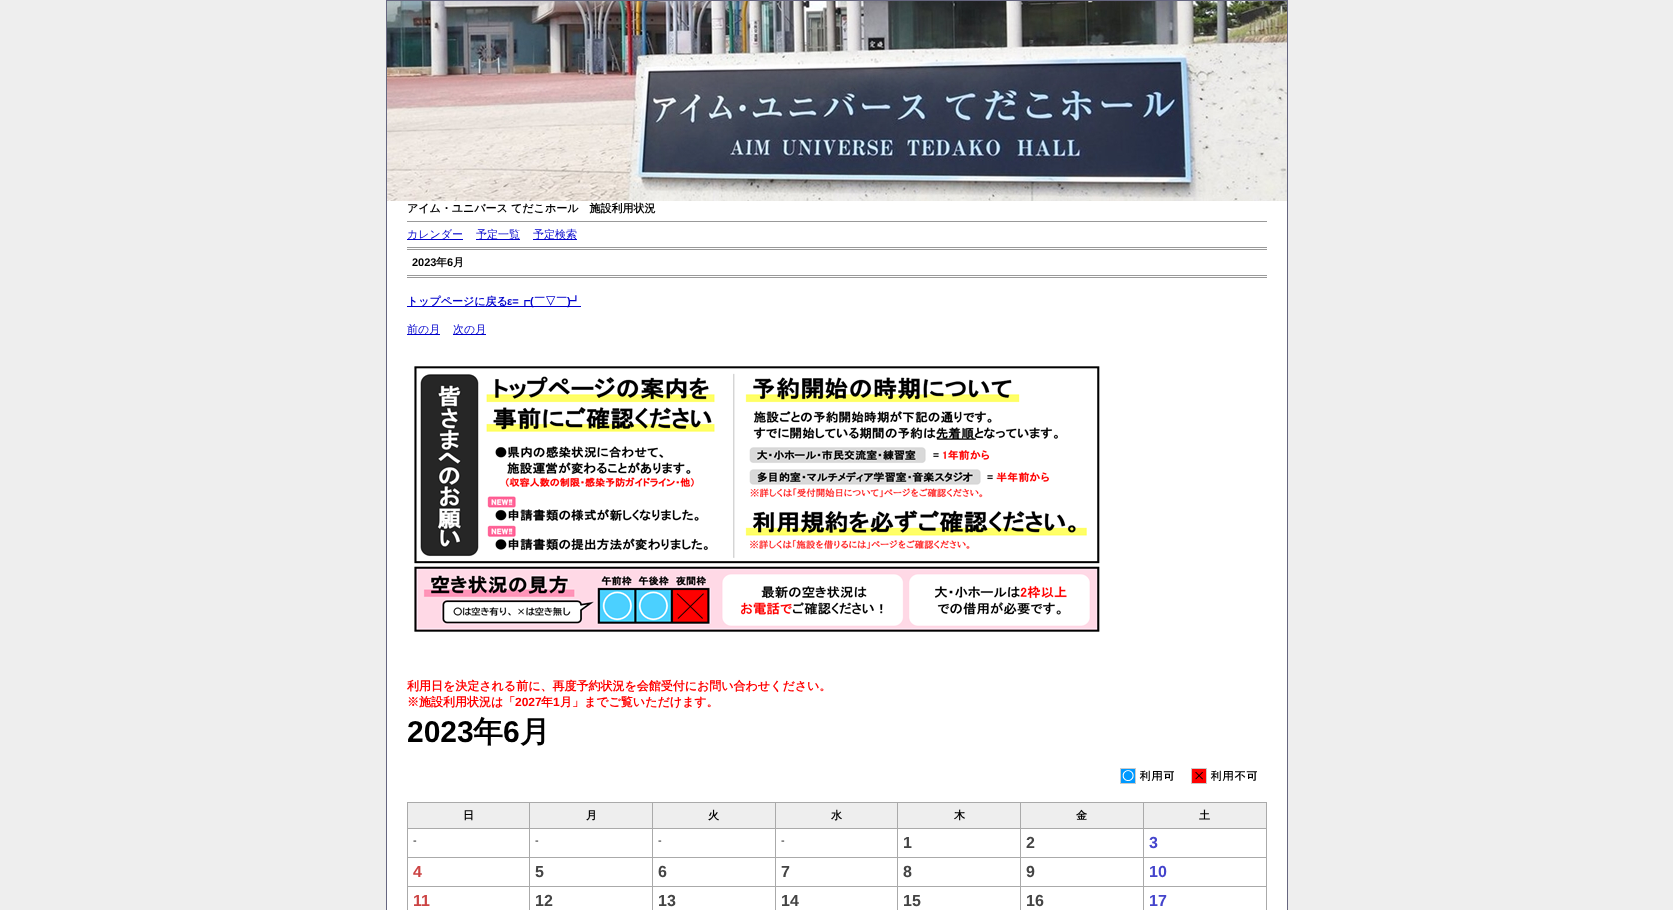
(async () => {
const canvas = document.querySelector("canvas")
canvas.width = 1673
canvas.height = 910
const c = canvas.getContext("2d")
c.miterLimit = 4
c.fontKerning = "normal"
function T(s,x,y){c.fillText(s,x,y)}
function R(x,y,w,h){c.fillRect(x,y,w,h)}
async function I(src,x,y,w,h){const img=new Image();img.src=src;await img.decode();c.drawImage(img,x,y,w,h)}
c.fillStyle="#eee"
R(0,0,1673,910)
await I("1.png",387,1,900,200)
c.fillStyle="#666680"
R(386,0,902,1)
R(1287,0,1,910)
R(386,0,1,910)
c.fillStyle="#fff"
R(387,201,900,709)
c.font="bold 11px WenQuanYi Zen Hei"
c.fillStyle="#000"
T("アイム・ユニバース てだこホール　施設利用状況",407,212)
c.fillStyle="#999"
R(407,221,860,1)
c.fillStyle="#00c"
R(407,239,56,1)
c.font="500 11px WenQuanYi Zen Hei"
T("カレンダー",407,238)
R(476,239,44,1)
T("予定一覧",476,238)
R(533,239,44,1)
T("予定検索",533,238)
c.fillStyle="#999"
R(407,247,860,1)
R(407,249,860,1)
R(407,275,860,1)
R(407,277,860,1)
c.font="bold 11px Liberation Sans"
c.fillStyle="#000"
T("2023",412,266)
c.font="bold 11px WenQuanYi Zen Hei"
T("年",436,266)
c.font="bold 11px Liberation Sans"
T("6",447,266)
c.font="bold 11px WenQuanYi Zen Hei"
T("月",453,266)
c.fillStyle="#00c"
R(407,306,174,1)
T("トップページに戻る",407,305)
c.font="bold 11px Liberation Sans"
T("ε=",507,305)
c.font="bold 11px WenQuanYi Zen Hei"
T("┏",519,305)
c.font="bold 11px Liberation Sans"
T("(",530,305)
c.font="bold 11px WenQuanYi Zen Hei"
T("￣▽￣",534,305)
c.font="bold 11px Liberation Sans"
T(")",567,305)
c.font="bold 11px WenQuanYi Zen Hei"
T("┛",570,305)
R(407,334,33,1)
c.font="500 11px WenQuanYi Zen Hei"
T("前の月",407,333)
R(453,334,33,1)
T("次の月",453,333)
await I("2.png",414,366,686,266)
c.font="bold 12px WenQuanYi Zen Hei"
c.fillStyle="#f00"
T("利用日を決定される前に、再度予約状況を会館受付にお問い合わせください。",407,690)
T("※施設利用状況は「",407,706)
c.font="bold 12px Liberation Sans"
T("2027",515,706)
c.font="bold 12px WenQuanYi Zen Hei"
T("年",541,706)
c.font="bold 12px Liberation Sans"
T("1",553,706)
c.font="bold 12px WenQuanYi Zen Hei"
T("月」までご覧いただけます。",560,706)
c.font="bold 30px Liberation Sans"
c.fillStyle="#000"
T("2023",407,742)
c.font="bold 30px WenQuanYi Zen Hei"
T("年",473,742)
c.font="bold 30px Liberation Sans"
T("6",503,742)
c.font="bold 30px WenQuanYi Zen Hei"
T("月",520,742)
await I("3.png",1120,768,54,16)
await I("4.png",1191,768,66,16)
c.fillStyle="#eee"
R(408,803,121,25)
c.fillStyle="#aaa"
R(1143,802,124,1)
R(1143,828,124,1)
R(1143,857,124,1)
R(1143,886,124,1)
R(1143,886,1,24)
R(1020,886,124,1)
R(1143,857,1,30)
R(1020,857,124,1)
R(1143,828,1,30)
R(1020,828,124,1)
R(1143,802,1,27)
R(1020,802,124,1)
R(1020,886,1,24)
R(897,886,124,1)
R(1020,857,1,30)
R(897,857,124,1)
R(1020,828,1,30)
R(897,828,124,1)
R(1020,802,1,27)
R(897,802,124,1)
R(897,886,1,24)
R(775,886,123,1)
R(897,857,1,30)
R(775,857,123,1)
R(897,828,1,30)
R(775,828,123,1)
R(897,802,1,27)
R(775,802,123,1)
R(775,886,1,24)
R(652,886,124,1)
R(775,857,1,30)
R(652,857,124,1)
R(775,828,1,30)
R(652,828,124,1)
R(775,802,1,27)
R(652,802,124,1)
R(652,886,1,24)
R(529,886,124,1)
R(652,857,1,30)
R(529,857,124,1)
R(652,828,1,30)
R(529,828,124,1)
R(652,802,1,27)
R(529,802,124,1)
R(529,886,1,24)
R(407,886,123,1)
R(529,857,1,30)
R(407,857,123,1)
R(529,828,1,30)
R(407,828,123,1)
R(529,802,1,27)
R(407,802,123,1)
R(407,886,1,24)
R(407,857,1,30)
R(407,828,1,30)
R(407,802,1,27)
c.font="bold 11px WenQuanYi Zen Hei"
c.fillStyle="#000"
T("日",463,819)
c.fillStyle="#eee"
R(530,803,122,25)
c.fillStyle="#000"
T("月",586,819)
c.fillStyle="#eee"
R(653,803,122,25)
c.fillStyle="#000"
T("火",708,819)
c.fillStyle="#eee"
R(776,803,121,25)
c.fillStyle="#000"
T("水",831,819)
c.fillStyle="#eee"
R(898,803,122,25)
c.fillStyle="#000"
T("木",954,819)
c.fillStyle="#eee"
R(1021,803,122,25)
c.fillStyle="#000"
T("金",1076,819)
c.fillStyle="#eee"
R(1144,803,122,25)
c.fillStyle="#aaa"
R(1266,886,1,24)
R(1266,857,1,30)
R(1266,828,1,30)
R(1266,802,1,27)
c.fillStyle="#000"
T("土",1199,819)
c.font="11px Liberation Sans"
T("-",413,844)
T("-",535,844)
T("-",658,844)
T("-",781,844)
c.font="bold 16px Liberation Sans"
c.fillStyle="#444"
T("1",903,848)
T("2",1026,848)
c.fillStyle="#44c"
T("3",1149,848)
c.fillStyle="#c44"
T("4",413,877)
c.fillStyle="#444"
T("5",535,877)
T("6",658,877)
T("7",781,877)
T("8",903,877)
T("9",1026,877)
c.fillStyle="#44c"
T("10",1149,877)
c.fillStyle="#c44"
T("11",413,906)
c.fillStyle="#444"
T("12",535,906)
T("13",658,906)
T("14",781,906)
T("15",903,906)
T("16",1026,906)
c.fillStyle="#44c"
T("17",1149,906)
})()
